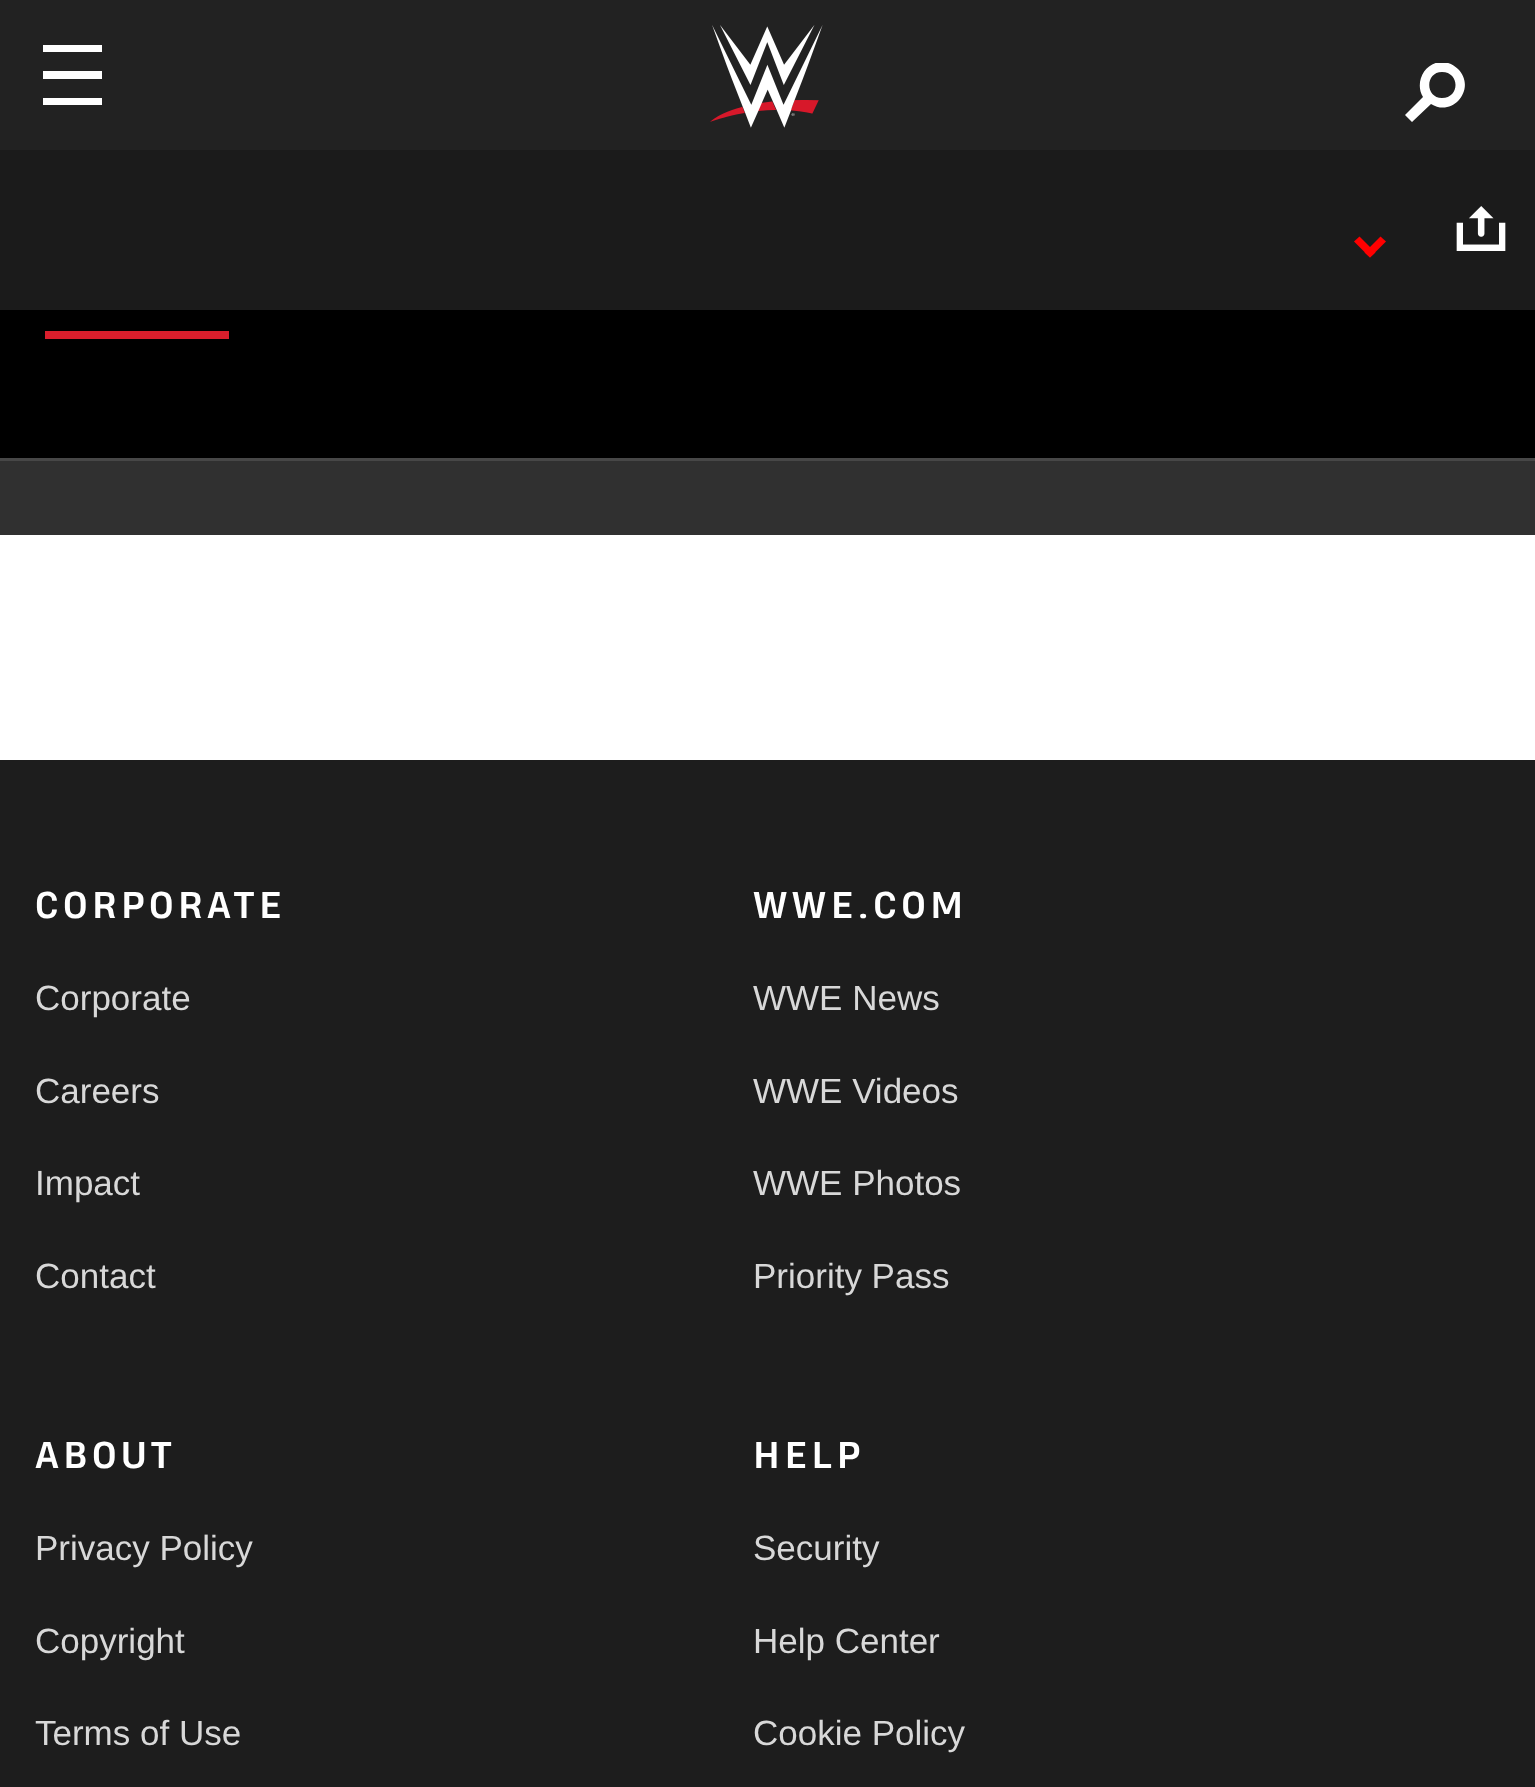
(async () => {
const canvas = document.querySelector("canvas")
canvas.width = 1535
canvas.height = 1787
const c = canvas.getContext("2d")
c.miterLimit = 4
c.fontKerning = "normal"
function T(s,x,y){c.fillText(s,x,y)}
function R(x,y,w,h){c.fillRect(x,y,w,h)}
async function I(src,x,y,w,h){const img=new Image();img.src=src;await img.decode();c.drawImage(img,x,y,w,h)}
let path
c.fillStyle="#fff"
R(0,0,1535,1787)
c.fillStyle="#222"
R(0,0,1535,150)
c.save()
c.beginPath()
c.rect(43,45,60,60)
c.clip()
c.fillStyle="#fff"
path = new Path2D("M46 52h-4v-7h60v7zm0 27h-4v-8h60v8zm0 26h-4v-7h60v7z")
c.fill(path,"evenodd")
c.restore()
await I("1.png",710,25,113,103)
c.save()
c.beginPath()
c.rect(1405,63,60,60)
c.clip()
c.fillStyle="#fff"
path = new Path2D("M1442 62c6 0 12 3 16 7c19 19-5 49-27 35l-19 18l-7-7l18-18c-9-15 2-35 19-35zm0 10c-17 0-17 26 0 26c18 0 18-26 0-26z")
c.fill(path,"evenodd")
c.restore()
c.fillStyle="#303030"
R(0,461,1535,74)
c.fillStyle="#1b1b1b"
R(0,150,1535,160)
c.fillStyle="#f00"
path = new Path2D("M1380.5 236.5l5.5 5l-16 16l-5.5-5z")
c.fill(path)
path = new Path2D("M1359.5 236.5l16 16l-5.5 5l-16-16z")
c.fill(path)
await I("2.png",1456,206,50,45)
c.fillStyle="#000"
R(0,310,1535,148)
c.fillStyle="#474747"
R(0,458,1535,3)
c.fillStyle="#d91e2c"
R(45,331,184,8)
c.fillStyle="#1d1d1d"
R(0,760,1535,1027)
c.letterSpacing="4.4px"
c.font="bold 35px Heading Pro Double"
c.fillStyle="#fff"
T("CORPORATE",35,918)
c.letterSpacing="0px"
c.font="35px Liberation Sans"
c.fillStyle="#d8d8d8"
T("Corporate",35,1010)
T("Careers",35,1103)
T("Impact",35,1195)
T("Contact",35,1288)
c.letterSpacing="4.4px"
c.font="bold 35px Heading Pro Double"
c.fillStyle="#fff"
T("WWE.COM",753,918)
c.letterSpacing="0px"
c.font="35px Liberation Sans"
c.fillStyle="#d8d8d8"
T("WWE News",753,1010)
T("WWE Videos",753,1103)
T("WWE Photos",753,1195)
T("Priority Pass",753,1288)
c.letterSpacing="4.4px"
c.font="bold 35px Heading Pro Double"
c.fillStyle="#fff"
T("ABOUT",35,1468)
c.letterSpacing="0px"
c.font="35px Liberation Sans"
c.fillStyle="#d8d8d8"
T("Privacy Policy",35,1560)
T("Copyright",35,1653)
T("Terms of Use",35,1745)
c.letterSpacing="4.4px"
c.font="bold 35px Heading Pro Double"
c.fillStyle="#fff"
T("HELP",753,1468)
c.letterSpacing="0px"
c.font="35px Liberation Sans"
c.fillStyle="#d8d8d8"
T("Security",753,1560)
T("Help Center",753,1653)
T("Cookie Policy",753,1745)
})()
